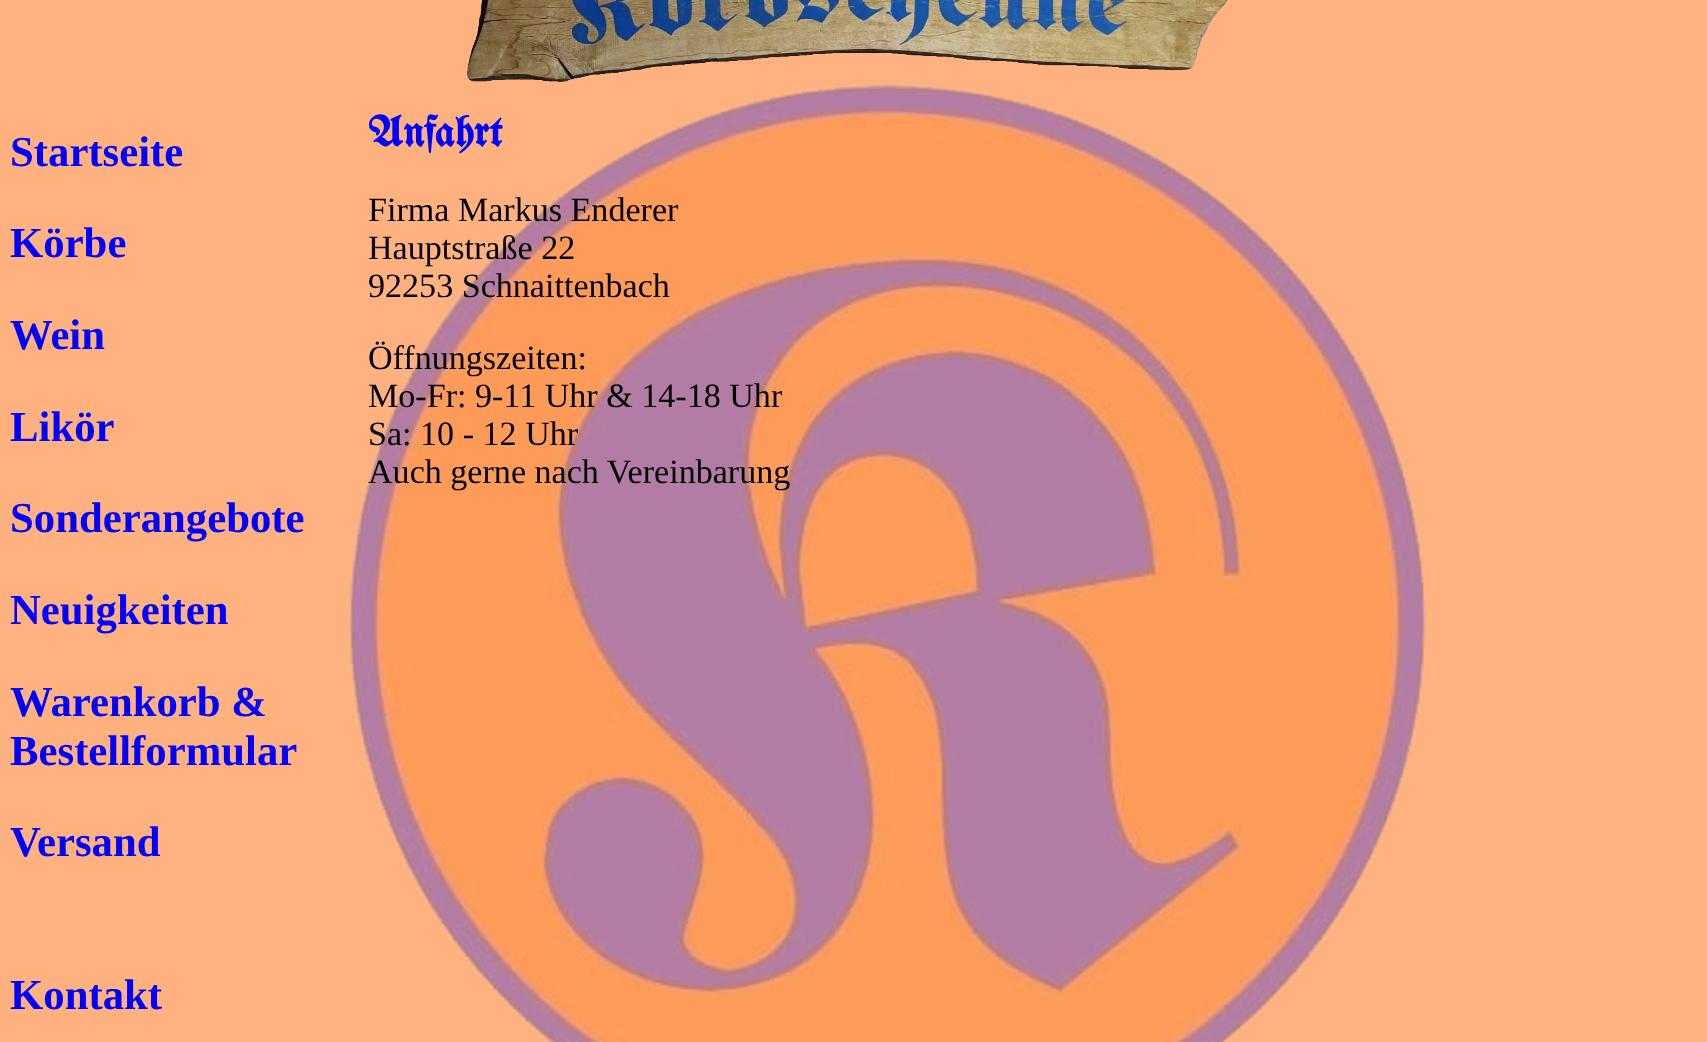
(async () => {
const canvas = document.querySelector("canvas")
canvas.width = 1707
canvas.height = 1042
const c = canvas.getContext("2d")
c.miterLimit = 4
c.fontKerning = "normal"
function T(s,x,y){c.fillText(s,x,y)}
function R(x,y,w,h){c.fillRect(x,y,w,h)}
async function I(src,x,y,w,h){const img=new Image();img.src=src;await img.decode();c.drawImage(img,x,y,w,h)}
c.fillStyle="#ffb27f"
R(0,0,1707,1042)
await I("1.png",467,0,761,82)
c.font="bold 42.75px Liberation Serif"
c.fillStyle="#0000fe"
T("Startseite",10,166)
T("Körbe",10,257)
T("Wein",10,349)
T("Likör",10,441)
T("Sonderangebote",10,532)
T("Neuigkeiten",10,624)
T("Warenkorb &",10,716)
T("Bestellformular",10,765)
T("Versand",10,856)
T("Kontakt",10,1009)
await I("2.png",349,84,1077,958)
c.font="bold 42.75px UnifrakturMaguntia"
T("Anfahrt",368,146)
c.font="34.1px Liberation Serif"
c.fillStyle="#000"
T("Firma Markus Enderer",368,221)
T("Hauptstraße 22",368,259)
T("92253 Schnaittenbach",368,297)
T("Öffnungszeiten:",368,369)
T("Mo-Fr: 9-11 Uhr & 14-18 Uhr",368,407)
T("Sa: 10 - 12 Uhr",368,445)
T("Auch gerne nach Vereinbarung",368,483)
})()
